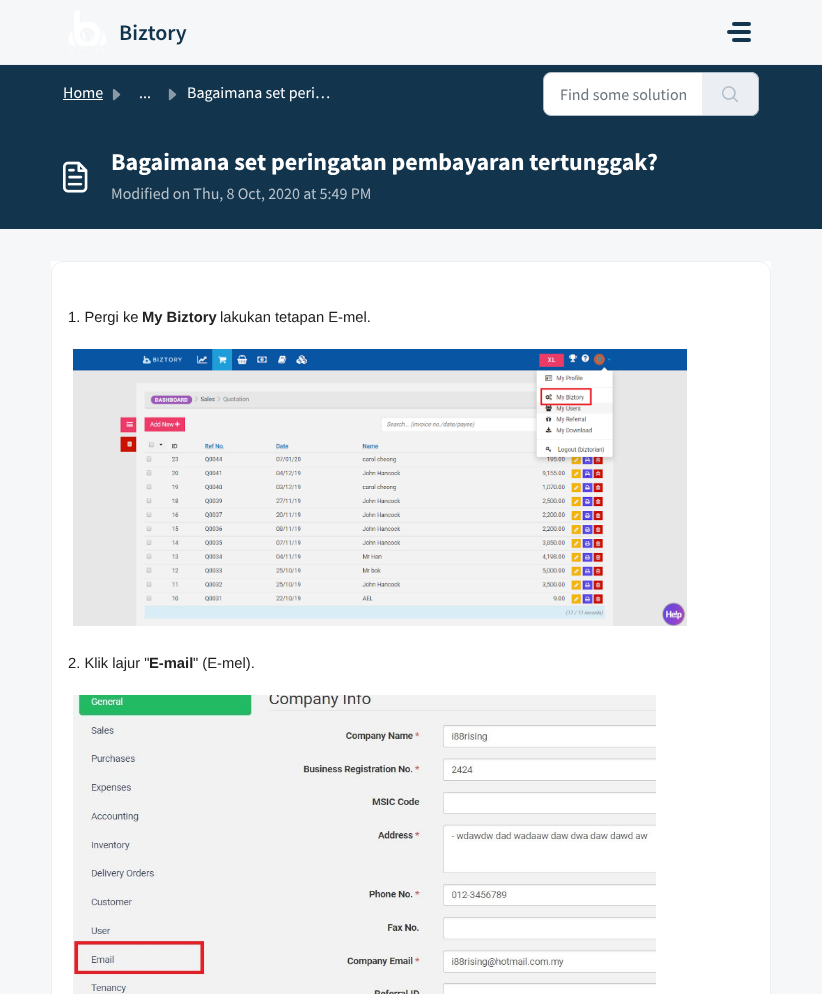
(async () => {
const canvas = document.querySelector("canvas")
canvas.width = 822
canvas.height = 994
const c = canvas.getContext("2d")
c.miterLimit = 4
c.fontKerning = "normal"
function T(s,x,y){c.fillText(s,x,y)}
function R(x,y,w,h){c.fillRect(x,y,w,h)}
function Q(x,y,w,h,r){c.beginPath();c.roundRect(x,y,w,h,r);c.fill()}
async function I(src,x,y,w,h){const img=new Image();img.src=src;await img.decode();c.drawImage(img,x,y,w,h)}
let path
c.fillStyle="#f5f7f9"
R(0,0,822,994)
c.fillStyle="#ebeff3"
R(0,64,822,1)
await I("1.png",68,10,39,43)
c.font="600 22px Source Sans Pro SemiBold"
c.fillStyle="#12344d"
T("Biztory",119,40)
Q(732,22,19,4,2)
Q(727,30,24,4,2)
Q(732,38,19,4,2)
R(0,65,822,164)
c.font="16px Source Sans Pro"
c.fillStyle="#fff"
T("Home",63,98)
R(63,99,40,1)
await I("2.png",112,89,9,12)
T("...",139,98)
await I("3.png",168,88,9,13)
T("Bagaimana set peri…",187,98)
c.beginPath()
c.roundRect(543.5,72.5,159,43,[7.5,0,0,7.5])
c.fill()
c.strokeStyle="#b1bdc8"
c.stroke()
c.save()
c.beginPath()
c.rect(560,84,126,20)
c.clip()
c.fillStyle="#6c757d"
T("Find some solution",560,100)
c.restore()
c.fillStyle="#ebeff3"
c.beginPath()
c.roundRect(702,72,57,44,[0,8,8,0])
c.fill()
c.fillStyle="#b1bdc8"
path = new Path2D("M702 72h49c4 0 8 4 8 8v28c0 4-4 8-8 8h-49zm0 1h49c4 0 7 3 7 7v28c0 4-3 7-7 7h-49z")
c.fill(path,"evenodd")
await I("4.png",722,86,16,17)
await I("5.png",63,161,25,32)
c.font="bold 24px Source Sans Pro"
c.fillStyle="#fff"
T("Bagaimana set peringatan pembayaran tertunggak?",111,170)
c.font="16px Source Sans Pro"
c.fillStyle="#b8c2ca"
T("Modified on Thu, 8 Oct, 2020 at 5:49 PM",111,199)
c.fillStyle="#fff"
R(51,261,720,733)
c.beginPath()
c.roundRect(51.5,261.5,719,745,11.5)
c.strokeStyle="#ebeff3"
c.stroke()
c.font="14.75px Liberation Sans"
c.fillStyle="#222"
T("1. Pergi ke",68,322)
c.font="bold 14.75px Liberation Sans"
T("My Biztory",142,322)
c.font="14.75px Liberation Sans"
T("lakukan tetapan E-mel.",220,322)
await I("6.png",73,349,614,277)
T("2. Klik lajur \"",68,668)
c.font="bold 14.75px Liberation Sans"
T("E-mail",149,668)
c.font="14.75px Liberation Sans"
T("\" (E-mel).",193,668)
await I("7.png",73,695,583,299)
})()
